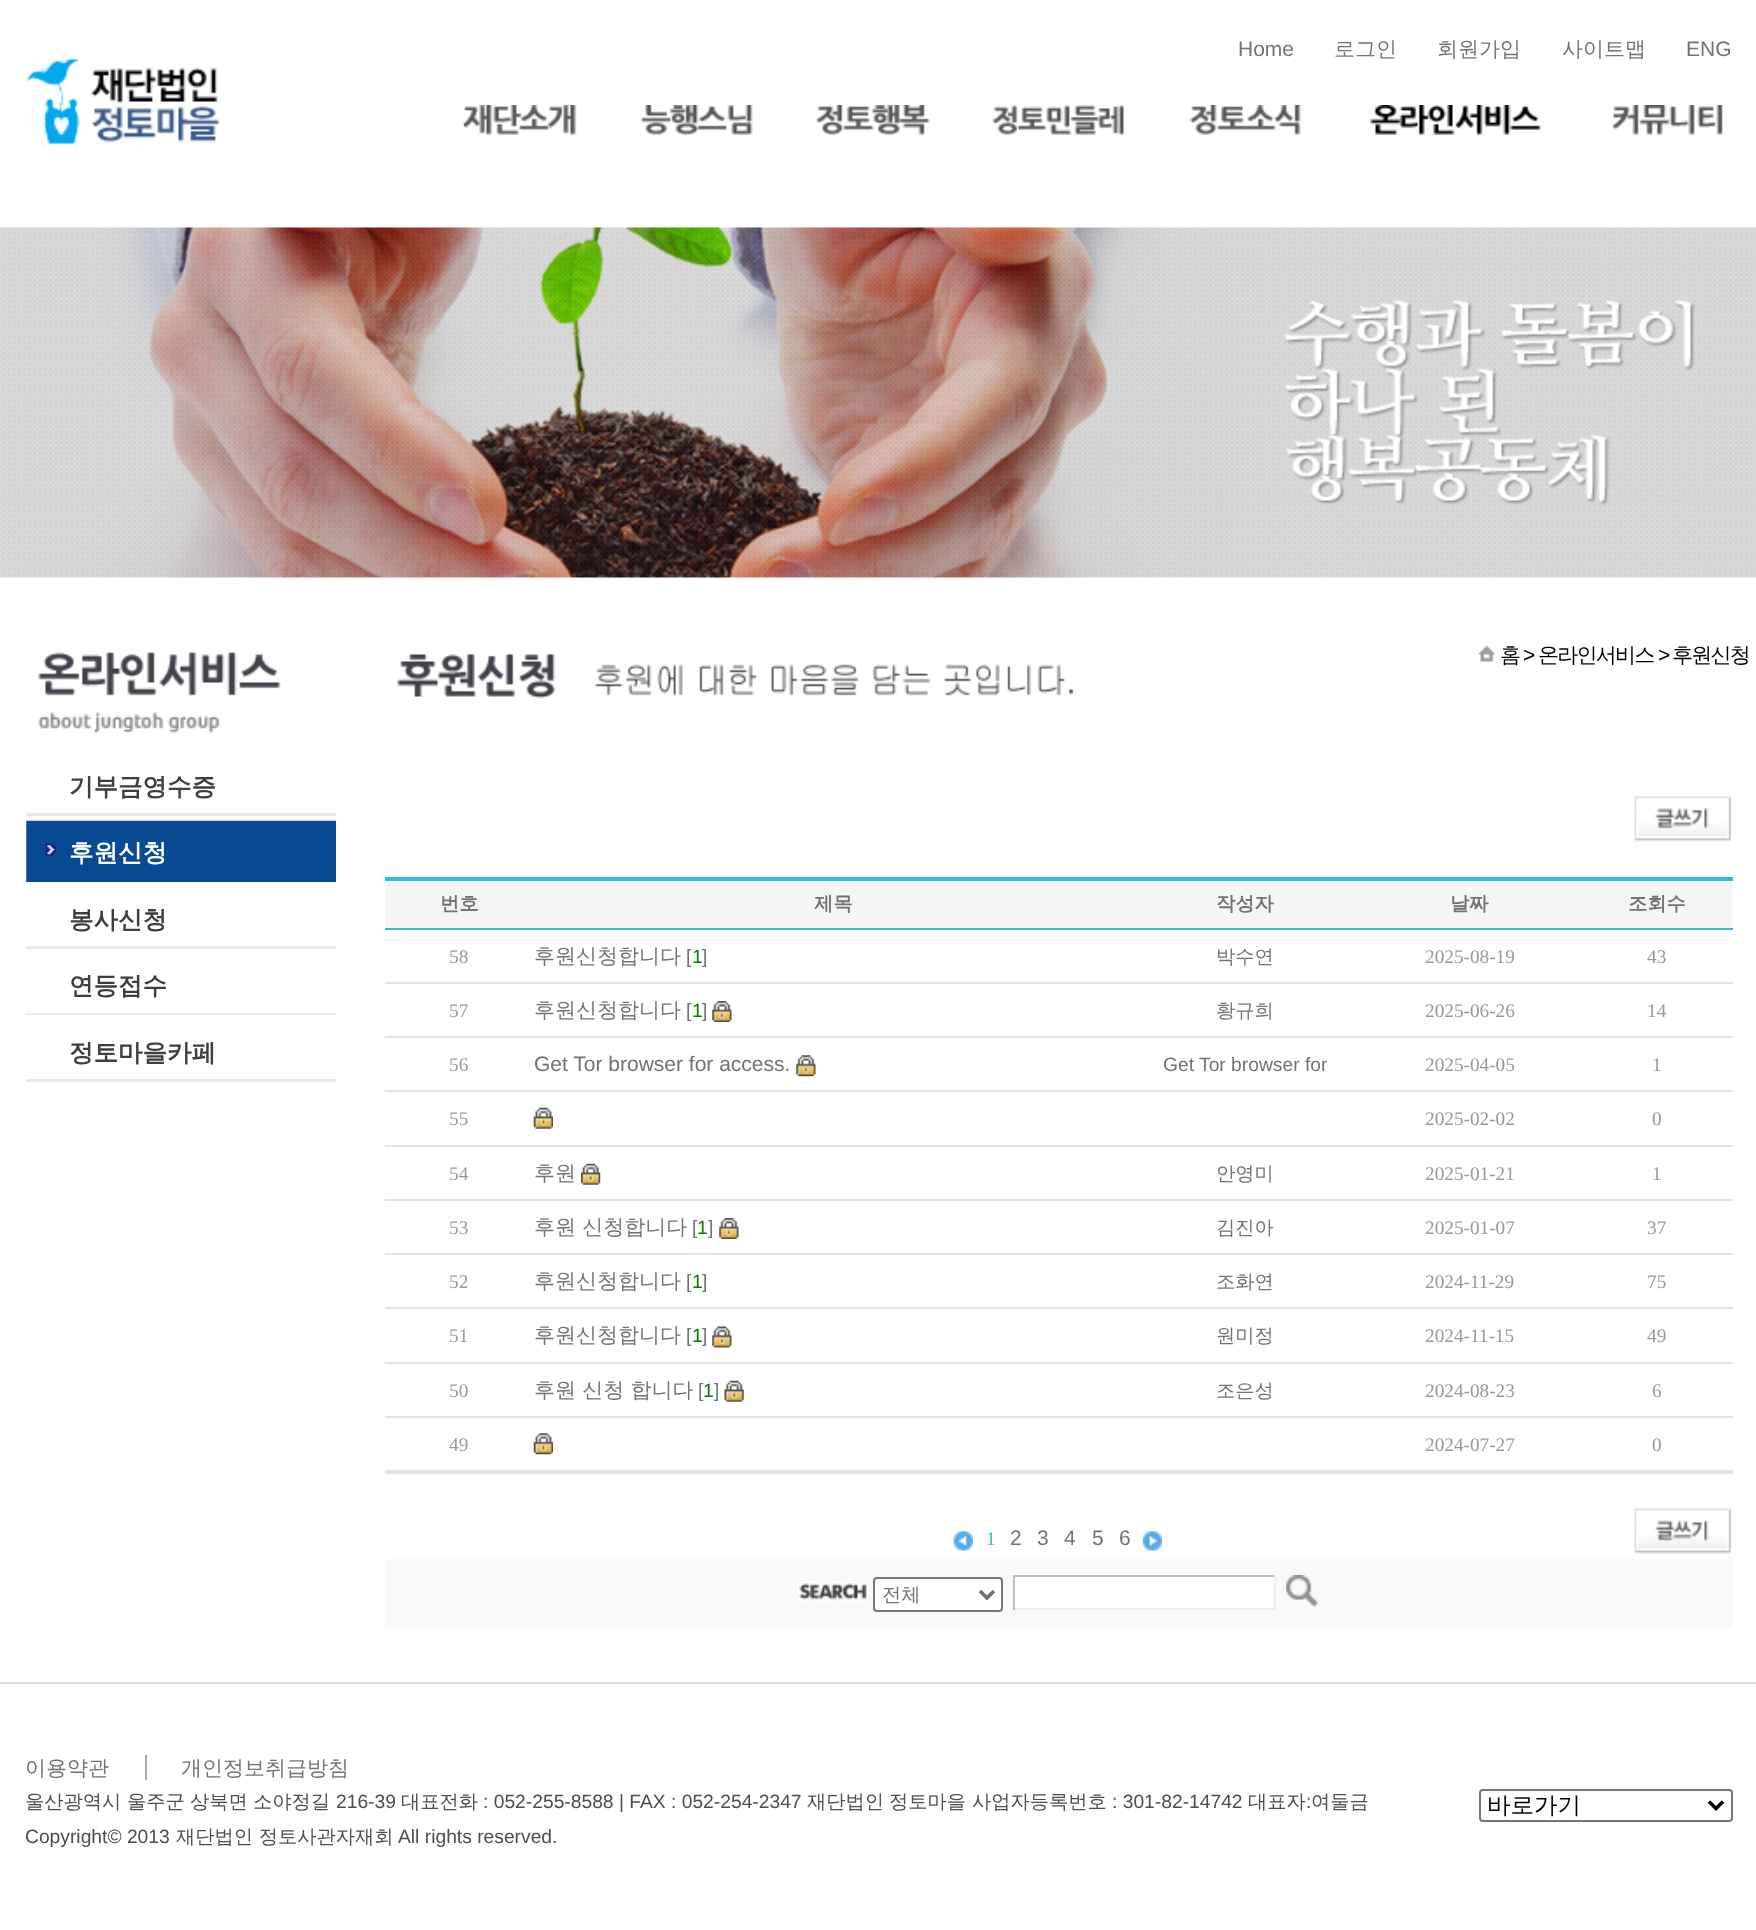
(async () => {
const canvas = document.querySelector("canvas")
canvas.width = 1756
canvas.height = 1930
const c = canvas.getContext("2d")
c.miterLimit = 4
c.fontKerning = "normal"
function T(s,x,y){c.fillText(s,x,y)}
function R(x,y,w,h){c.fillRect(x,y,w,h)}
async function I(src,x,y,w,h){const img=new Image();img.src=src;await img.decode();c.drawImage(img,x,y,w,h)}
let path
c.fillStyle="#fff"
R(0,0,1756,1930)
c.font="21px Liberation Sans"
c.fillStyle="#737373"
T("Home",1238,56)
c.font="500 21px WenQuanYi Zen Hei"
T("로그인",1334,56)
T("회원가입",1437,56)
T("사이트맵",1562,56)
c.font="21px Liberation Sans"
T("ENG",1686,56)
await I("1.png",26,57,194,91)
await I("2.png",463,105,114,30)
await I("3.png",640,105,113,30)
await I("4.png",815,105,115,30)
await I("5.png",992,105,132,30)
await I("6.png",1189,105,112,30)
await I("7.png",1369,105,172,30)
await I("8.png",1611,105,112,30)
await I("9.png",0,227,1756,351)
await I("10.png",38,652,243,82)
c.fillStyle="#e9ece6"
R(26,813,310,3)
c.font="bold 24.5px WenQuanYi Zen Hei"
c.fillStyle="#3e3e3e"
T("기부금영수증",69,795)
await I("11.png",26,820,310,62)
c.fillStyle="#fff"
T("후원신청",69,861)
c.fillStyle="#e9ece6"
R(26,946,310,3)
c.fillStyle="#3e3e3e"
T("봉사신청",69,928)
await I("12.png",26,1013,310,2)
T("연등접수",69,994)
c.fillStyle="#e9ece6"
R(26,1079,310,3)
c.fillStyle="#3e3e3e"
T("정토마을카페",69,1061)
await I("13.png",396,654,678,45)
await I("14.png",1478,645,17,17)
c.letterSpacing="-1.75px"
c.font="500 21px WenQuanYi Zen Hei"
c.fillStyle="#000"
T("홈",1500,662)
c.font="21px Liberation Sans"
T(">",1523,662)
c.font="500 21px WenQuanYi Zen Hei"
T("온라인서비스",1538,662)
c.font="21px Liberation Sans"
T(">",1658,662)
c.font="500 21px WenQuanYi Zen Hei"
T("후원신청",1672,662)
await I("15.png",1634,796,98,46)
c.fillStyle="#e4e4e4"
R(385,1472,1348,2)
c.fillStyle="#f5f5f5"
R(385,881,1348,47)
c.fillStyle="#35badd"
R(385,877,1348,4)
R(385,928,1348,2)
c.letterSpacing="0px"
c.font="bold 19.25px WenQuanYi Zen Hei"
c.fillStyle="#737373"
T("번호",440,910)
T("제목",814,910)
T("작성자",1216,910)
T("날짜",1450,910)
T("조회수",1628,910)
c.fillStyle="#e4e4e4"
R(385,982,1348,2)
c.font="19.25px Liberation Serif"
c.fillStyle="#999"
T("58",449,963)
c.font="500 21px WenQuanYi Zen Hei"
c.fillStyle="#737373"
T("후원신청합니다",534,963)
c.font="19.25px Liberation Sans"
T("[",686,963)
c.fillStyle="#008000"
T("1",692,963)
c.fillStyle="#737373"
T("]",702,963)
c.font="500 19.25px WenQuanYi Zen Hei"
T("박수연",1216,963)
c.font="19.25px Liberation Serif"
c.fillStyle="#999"
T("2025-08-19",1425,963)
T("43",1647,963)
c.fillStyle="#e4e4e4"
R(385,1036,1348,2)
c.fillStyle="#999"
T("57",449,1017)
c.font="500 21px WenQuanYi Zen Hei"
c.fillStyle="#737373"
T("후원신청합니다",534,1017)
c.font="19.25px Liberation Sans"
T("[",686,1017)
c.fillStyle="#008000"
T("1",692,1017)
c.fillStyle="#737373"
T("]",702,1017)
await I("16.png",712,1001,20,21)
c.font="500 19.25px WenQuanYi Zen Hei"
T("황규희",1216,1017)
c.font="19.25px Liberation Serif"
c.fillStyle="#999"
T("2025-06-26",1425,1017)
T("14",1647,1017)
c.fillStyle="#e4e4e4"
R(385,1090,1348,2)
c.fillStyle="#999"
T("56",449,1071)
c.font="21px Liberation Sans"
c.fillStyle="#737373"
T("Get Tor browser for access.",534,1071)
await I("17.png",796,1055,20,22)
c.font="19.25px Liberation Sans"
T("Get Tor browser for",1163,1071)
c.font="19.25px Liberation Serif"
c.fillStyle="#999"
T("2025-04-05",1425,1071)
T("1",1652,1071)
c.fillStyle="#e4e4e4"
R(385,1145,1348,2)
c.fillStyle="#999"
T("55",449,1125)
await I("18.png",533,1107,20,22)
T("2025-02-02",1425,1125)
T("0",1652,1125)
c.fillStyle="#e4e4e4"
R(385,1199,1348,2)
c.fillStyle="#999"
T("54",449,1180)
c.font="500 21px WenQuanYi Zen Hei"
c.fillStyle="#737373"
T("후원",534,1180)
await I("19.png",581,1163,20,22)
c.font="500 19.25px WenQuanYi Zen Hei"
T("안영미",1216,1180)
c.font="19.25px Liberation Serif"
c.fillStyle="#999"
T("2025-01-21",1425,1180)
T("1",1652,1180)
c.fillStyle="#e4e4e4"
R(385,1253,1348,2)
c.fillStyle="#999"
T("53",449,1234)
c.font="500 21px WenQuanYi Zen Hei"
c.fillStyle="#737373"
T("후원 신청합니다",534,1234)
c.font="19.25px Liberation Sans"
T("[",692,1234)
c.fillStyle="#008000"
T("1",697,1234)
c.fillStyle="#737373"
T("]",708,1234)
await I("16.png",719,1218,20,21)
c.font="500 19.25px WenQuanYi Zen Hei"
T("김진아",1216,1234)
c.font="19.25px Liberation Serif"
c.fillStyle="#999"
T("2025-01-07",1425,1234)
T("37",1647,1234)
c.fillStyle="#e4e4e4"
R(385,1307,1348,2)
c.fillStyle="#999"
T("52",449,1288)
c.font="500 21px WenQuanYi Zen Hei"
c.fillStyle="#737373"
T("후원신청합니다",534,1288)
c.font="19.25px Liberation Sans"
T("[",686,1288)
c.fillStyle="#008000"
T("1",692,1288)
c.fillStyle="#737373"
T("]",702,1288)
c.font="500 19.25px WenQuanYi Zen Hei"
T("조화연",1216,1288)
c.font="19.25px Liberation Serif"
c.fillStyle="#999"
T("2024-11-29",1425,1288)
T("75",1647,1288)
c.fillStyle="#e4e4e4"
R(385,1362,1348,2)
c.fillStyle="#999"
T("51",449,1342)
c.font="500 21px WenQuanYi Zen Hei"
c.fillStyle="#737373"
T("후원신청합니다",534,1342)
c.font="19.25px Liberation Sans"
T("[",686,1342)
c.fillStyle="#008000"
T("1",692,1342)
c.fillStyle="#737373"
T("]",702,1342)
await I("20.png",712,1326,20,22)
c.font="500 19.25px WenQuanYi Zen Hei"
T("원미정",1216,1342)
c.font="19.25px Liberation Serif"
c.fillStyle="#999"
T("2024-11-15",1425,1342)
T("49",1647,1342)
c.fillStyle="#e4e4e4"
R(385,1416,1348,2)
c.fillStyle="#999"
T("50",449,1397)
c.font="500 21px WenQuanYi Zen Hei"
c.fillStyle="#737373"
T("후원 신청 합니다",534,1397)
c.font="19.25px Liberation Sans"
T("[",698,1397)
c.fillStyle="#008000"
T("1",703,1397)
c.fillStyle="#737373"
T("]",714,1397)
await I("21.png",724,1380,20,22)
c.font="500 19.25px WenQuanYi Zen Hei"
T("조은성",1216,1397)
c.font="19.25px Liberation Serif"
c.fillStyle="#999"
T("2024-08-23",1425,1397)
T("6",1652,1397)
c.fillStyle="#e4e4e4"
R(385,1470,1348,2)
c.fillStyle="#999"
T("49",449,1451)
await I("22.png",533,1433,20,22)
T("2024-07-27",1425,1451)
T("0",1652,1451)
await I("23.png",953,1531,20,20)
c.fillStyle="#35badd"
T("1",986,1545)
c.font="21px Liberation Sans"
c.fillStyle="#737373"
T("2",1010,1545)
T("3",1037,1545)
T("4",1064,1545)
T("5",1092,1545)
T("6",1119,1545)
await I("24.png",1142,1531,20,20)
await I("25.png",1634,1508,98,46)
c.fillStyle="#f9f9f9"
R(385,1559,1348,70)
await I("26.png",798,1582,70,19)
c.fillStyle="#fff"
c.beginPath()
c.roundRect(874,1578,128,33,3)
c.fill()
c.strokeStyle="#767676"
c.lineWidth=2
c.stroke()
path = new Path2D("M980 1591l7 7l7-7")
c.strokeStyle="#707070"
c.lineWidth=3.5
c.stroke(path)
c.font="500 19.25px WenQuanYi Zen Hei"
c.fillStyle="#737373"
T("전체",882,1601)
c.fillStyle="#fff"
R(1015,1577,259,31)
c.fillStyle="#bebebe"
R(1013,1575,263,2)
c.fillStyle="#ededed"
R(1274,1575,2,35)
R(1013,1608,263,2)
c.fillStyle="#bebebe"
R(1013,1575,2,35)
await I("27.png",1286,1575,32,32)
c.fillStyle="#ddd"
R(0,1682,1756,2)
c.font="500 21px WenQuanYi Zen Hei"
c.fillStyle="#737373"
T("이용약관",25,1775)
c.fillStyle="#acacac"
R(145,1755,2,25)
c.fillStyle="#737373"
T("개인정보취급방침",181,1775)
c.font="500 19.25px WenQuanYi Zen Hei"
c.fillStyle="#4d4d4d"
T("울산광역시",25,1808)
T("울주군",127,1808)
T("상북면",190,1808)
T("소야정길",253,1808)
c.font="19.25px Liberation Sans"
T("216-39",336,1808)
c.font="500 19.25px WenQuanYi Zen Hei"
T("대표전화",401,1808)
c.font="19.25px Liberation Sans"
T(": 052-255-8588 | FAX : 052-254-2347",483,1808)
c.font="500 19.25px WenQuanYi Zen Hei"
T("재단법인",807,1808)
T("정토마을",889,1808)
T("사업자등록번호",972,1808)
c.font="19.25px Liberation Sans"
T(": 301-82-14742",1112,1808)
c.font="500 19.25px WenQuanYi Zen Hei"
T("대표자",1248,1808)
c.font="19.25px Liberation Sans"
T(":",1306,1808)
c.font="500 19.25px WenQuanYi Zen Hei"
T("여둘금",1311,1808)
c.beginPath()
c.roundRect(1480,1790,252,31,3)
c.strokeStyle="#767676"
c.lineWidth=2
c.stroke()
path = new Path2D("M1709 1801.5l7 7l7-7")
c.strokeStyle="#000"
c.lineWidth=3.5
c.stroke(path)
c.font="500 23.5px WenQuanYi Zen Hei"
c.fillStyle="#000"
T("바로가기",1487,1813)
c.font="19.25px Liberation Sans"
c.fillStyle="#4d4d4d"
T("Copyright© 2013",25,1843)
c.font="500 19.25px WenQuanYi Zen Hei"
T("재단법인 정토사관자재회",176,1843)
c.font="19.25px Liberation Sans"
T("All rights reserved.",398,1843)
})()
